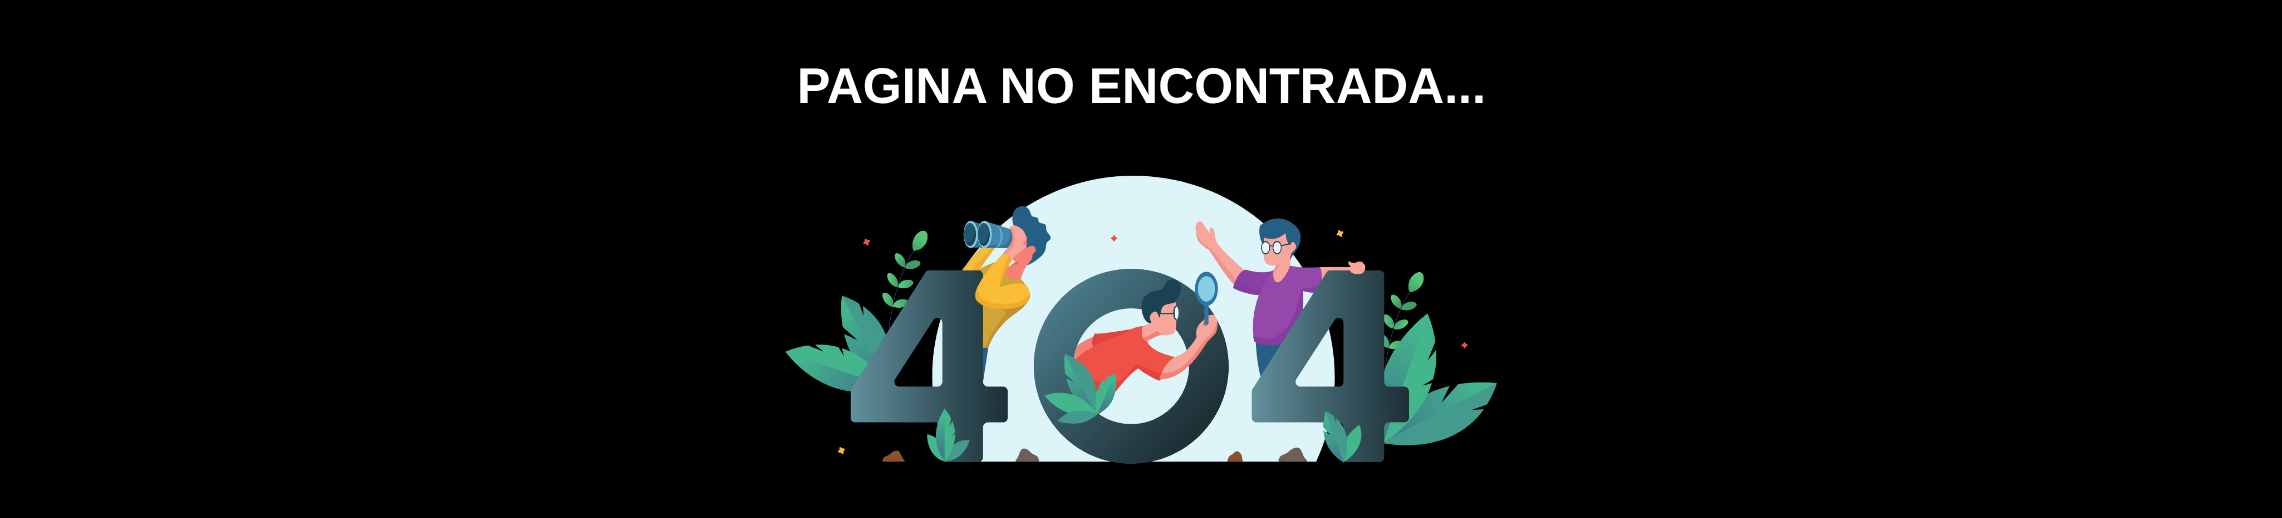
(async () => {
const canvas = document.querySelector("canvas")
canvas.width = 2282
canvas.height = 518
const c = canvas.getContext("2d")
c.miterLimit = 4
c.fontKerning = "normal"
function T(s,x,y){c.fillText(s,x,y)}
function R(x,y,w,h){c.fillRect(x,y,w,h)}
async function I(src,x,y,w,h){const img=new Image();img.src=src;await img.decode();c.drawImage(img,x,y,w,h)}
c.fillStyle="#000"
R(0,0,2282,518)
c.font="bold 50px Liberation Sans"
c.fillStyle="#fff"
T("PAGINA NO ENCONTRADA...",797,103)
await I("1.png",785,175,712,289)
})()
